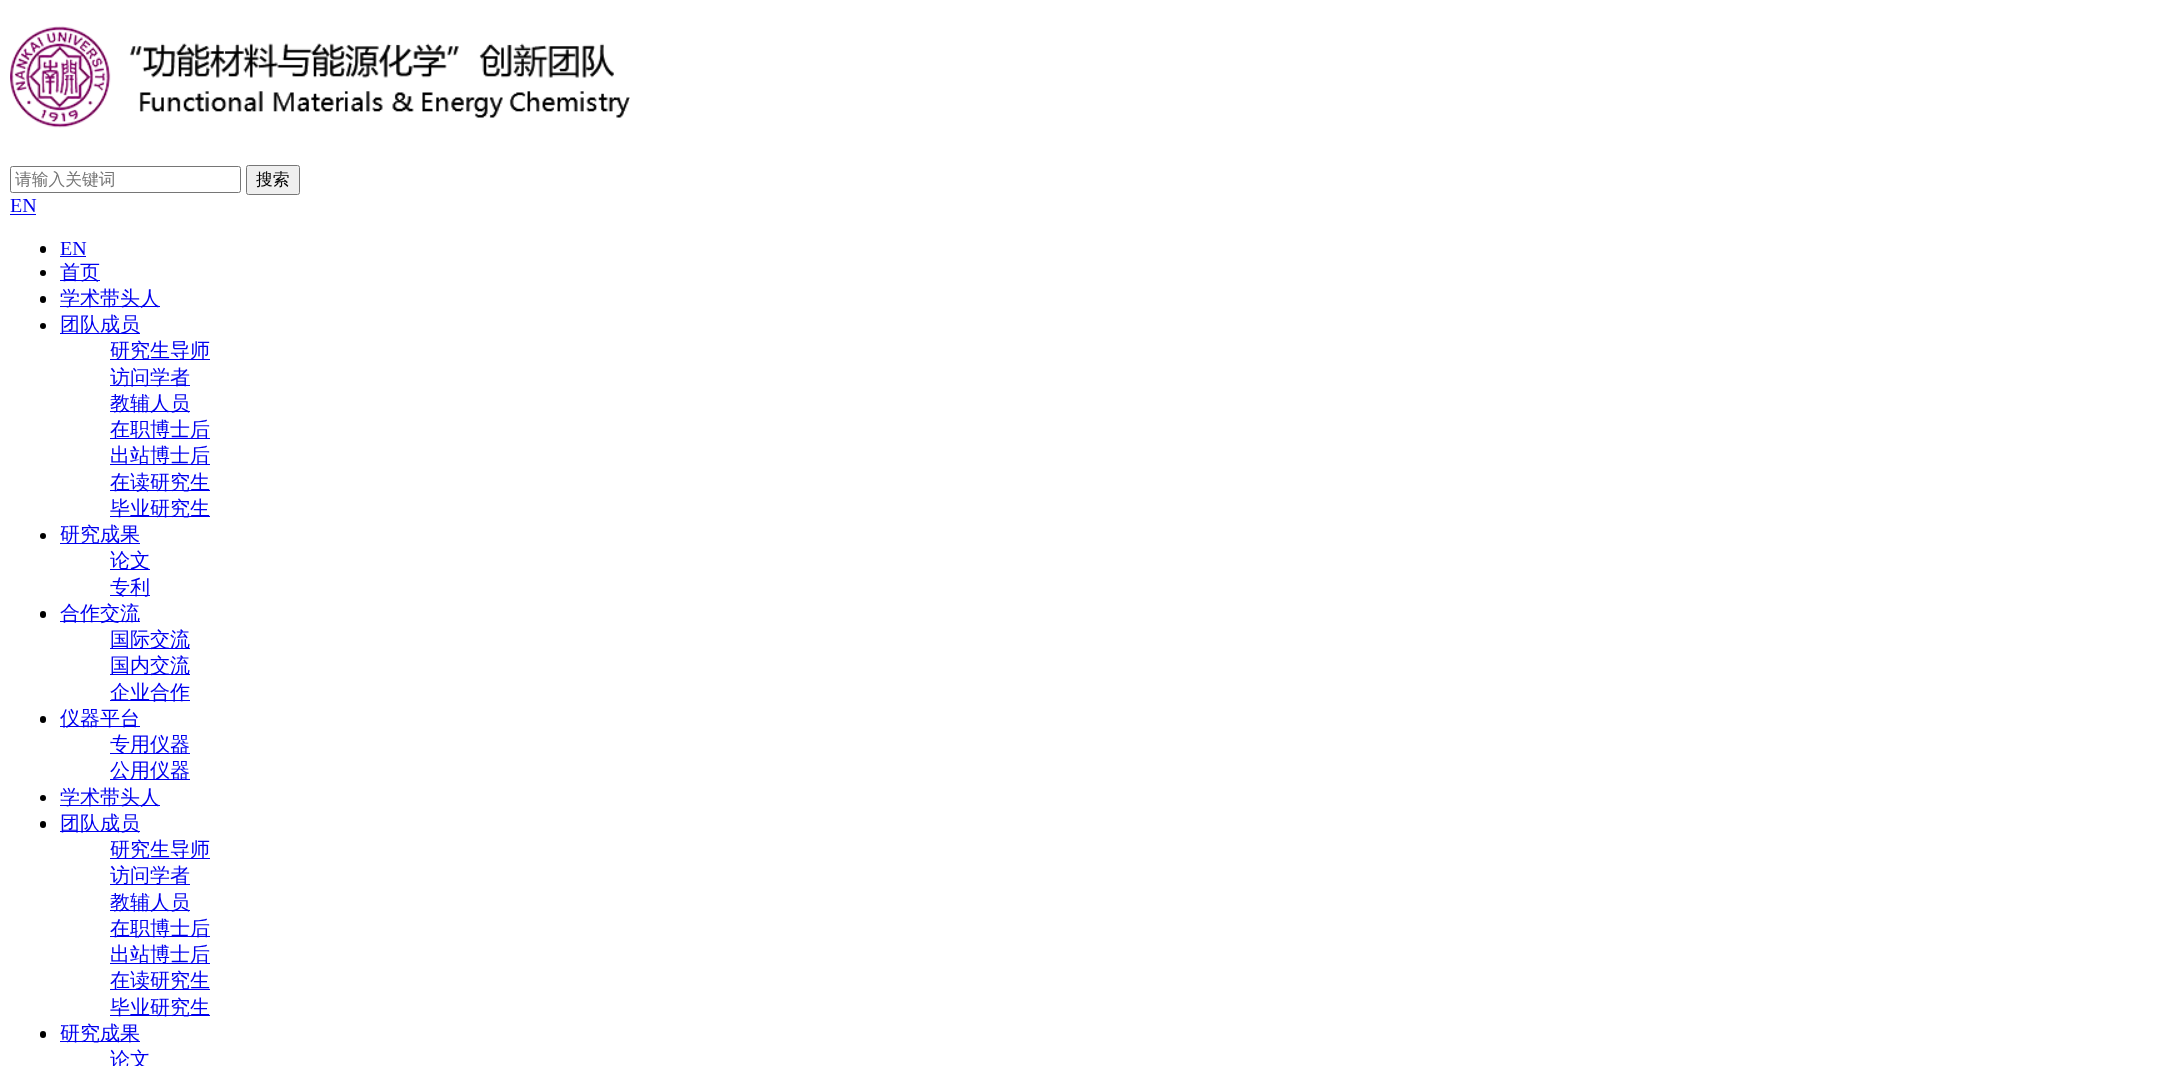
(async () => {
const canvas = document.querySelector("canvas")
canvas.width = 2167
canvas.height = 1066
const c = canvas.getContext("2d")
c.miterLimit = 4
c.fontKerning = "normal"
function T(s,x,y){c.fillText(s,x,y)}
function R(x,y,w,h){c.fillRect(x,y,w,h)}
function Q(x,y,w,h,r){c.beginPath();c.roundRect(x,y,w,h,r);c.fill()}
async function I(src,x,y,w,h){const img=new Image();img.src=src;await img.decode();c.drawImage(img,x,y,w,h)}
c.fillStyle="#fff"
R(0,0,2167,1066)
await I("1.png",10,26,620,102)
c.beginPath()
c.roundRect(10.5,166.5,230,26,2)
c.strokeStyle="#767676"
c.stroke()
c.font="500 16.75px WenQuanYi Zen Hei"
c.fillStyle="#757575"
T("请输入关键词",15,185)
c.fillStyle="#efefef"
c.beginPath()
c.roundRect(246.5,165.5,53,29,2)
c.fill()
c.stroke()
c.fillStyle="#000"
T("搜索",256,185)
c.font="20px Liberation Serif"
c.fillStyle="#00e"
T("EN",10,212)
R(10,214,26,1)
c.fillStyle="#000"
Q(40,246,6,7,3)
c.fillStyle="#00e"
T("EN",60,255)
R(60,256,26,1)
c.fillStyle="#000"
c.beginPath()
c.arc(43,273,3,0,7)
c.fill()
c.fillStyle="#00e"
R(60,280,40,1)
c.font="500 20px WenQuanYi Zen Hei"
T("首页",60,279)
c.fillStyle="#000"
Q(40,296,6,7,3)
c.fillStyle="#00e"
R(60,306,100,1)
T("学术带头人",60,305)
c.fillStyle="#000"
c.beginPath()
c.arc(43,326,3,0,7)
c.fill()
c.fillStyle="#00e"
R(60,333,80,1)
T("团队成员",60,331)
R(110,359,100,1)
T("研究生导师",110,357)
R(110,385,80,1)
T("访问学者",110,384)
R(110,411,80,1)
T("教辅人员",110,410)
R(110,438,100,1)
T("在职博士后",110,436)
R(110,464,100,1)
T("出站博士后",110,462)
R(110,490,100,1)
T("在读研究生",110,489)
R(110,516,100,1)
T("毕业研究生",110,515)
c.fillStyle="#000"
c.beginPath()
c.arc(43,536,3,0,7)
c.fill()
c.fillStyle="#00e"
R(60,543,80,1)
T("研究成果",60,541)
R(110,569,40,1)
T("论文",110,567)
R(110,595,40,1)
T("专利",110,594)
c.fillStyle="#000"
Q(40,611,6,7,3)
c.fillStyle="#00e"
R(60,621,80,1)
T("合作交流",60,620)
R(110,648,80,1)
T("国际交流",110,646)
R(110,674,80,1)
T("国内交流",110,672)
R(110,700,80,1)
T("企业合作",110,699)
c.fillStyle="#000"
Q(40,716,6,7,3)
c.fillStyle="#00e"
R(60,726,80,1)
T("仪器平台",60,725)
R(110,753,80,1)
T("专用仪器",110,751)
R(110,779,80,1)
T("公用仪器",110,777)
c.fillStyle="#000"
c.beginPath()
c.arc(43,798,3,0,7)
c.fill()
c.fillStyle="#00e"
R(60,805,100,1)
T("学术带头人",60,804)
c.fillStyle="#000"
Q(40,821,6,7,3)
c.fillStyle="#00e"
R(60,831,80,1)
T("团队成员",60,830)
R(110,858,100,1)
T("研究生导师",110,856)
R(110,884,80,1)
T("访问学者",110,882)
R(110,910,80,1)
T("教辅人员",110,909)
R(110,936,100,1)
T("在职博士后",110,935)
R(110,963,100,1)
T("出站博士后",110,961)
R(110,989,100,1)
T("在读研究生",110,987)
R(110,1015,100,1)
T("毕业研究生",110,1014)
c.fillStyle="#000"
Q(40,1031,6,7,3)
c.fillStyle="#00e"
R(60,1041,80,1)
T("研究成果",60,1040)
T("论文",110,1066)
})()
